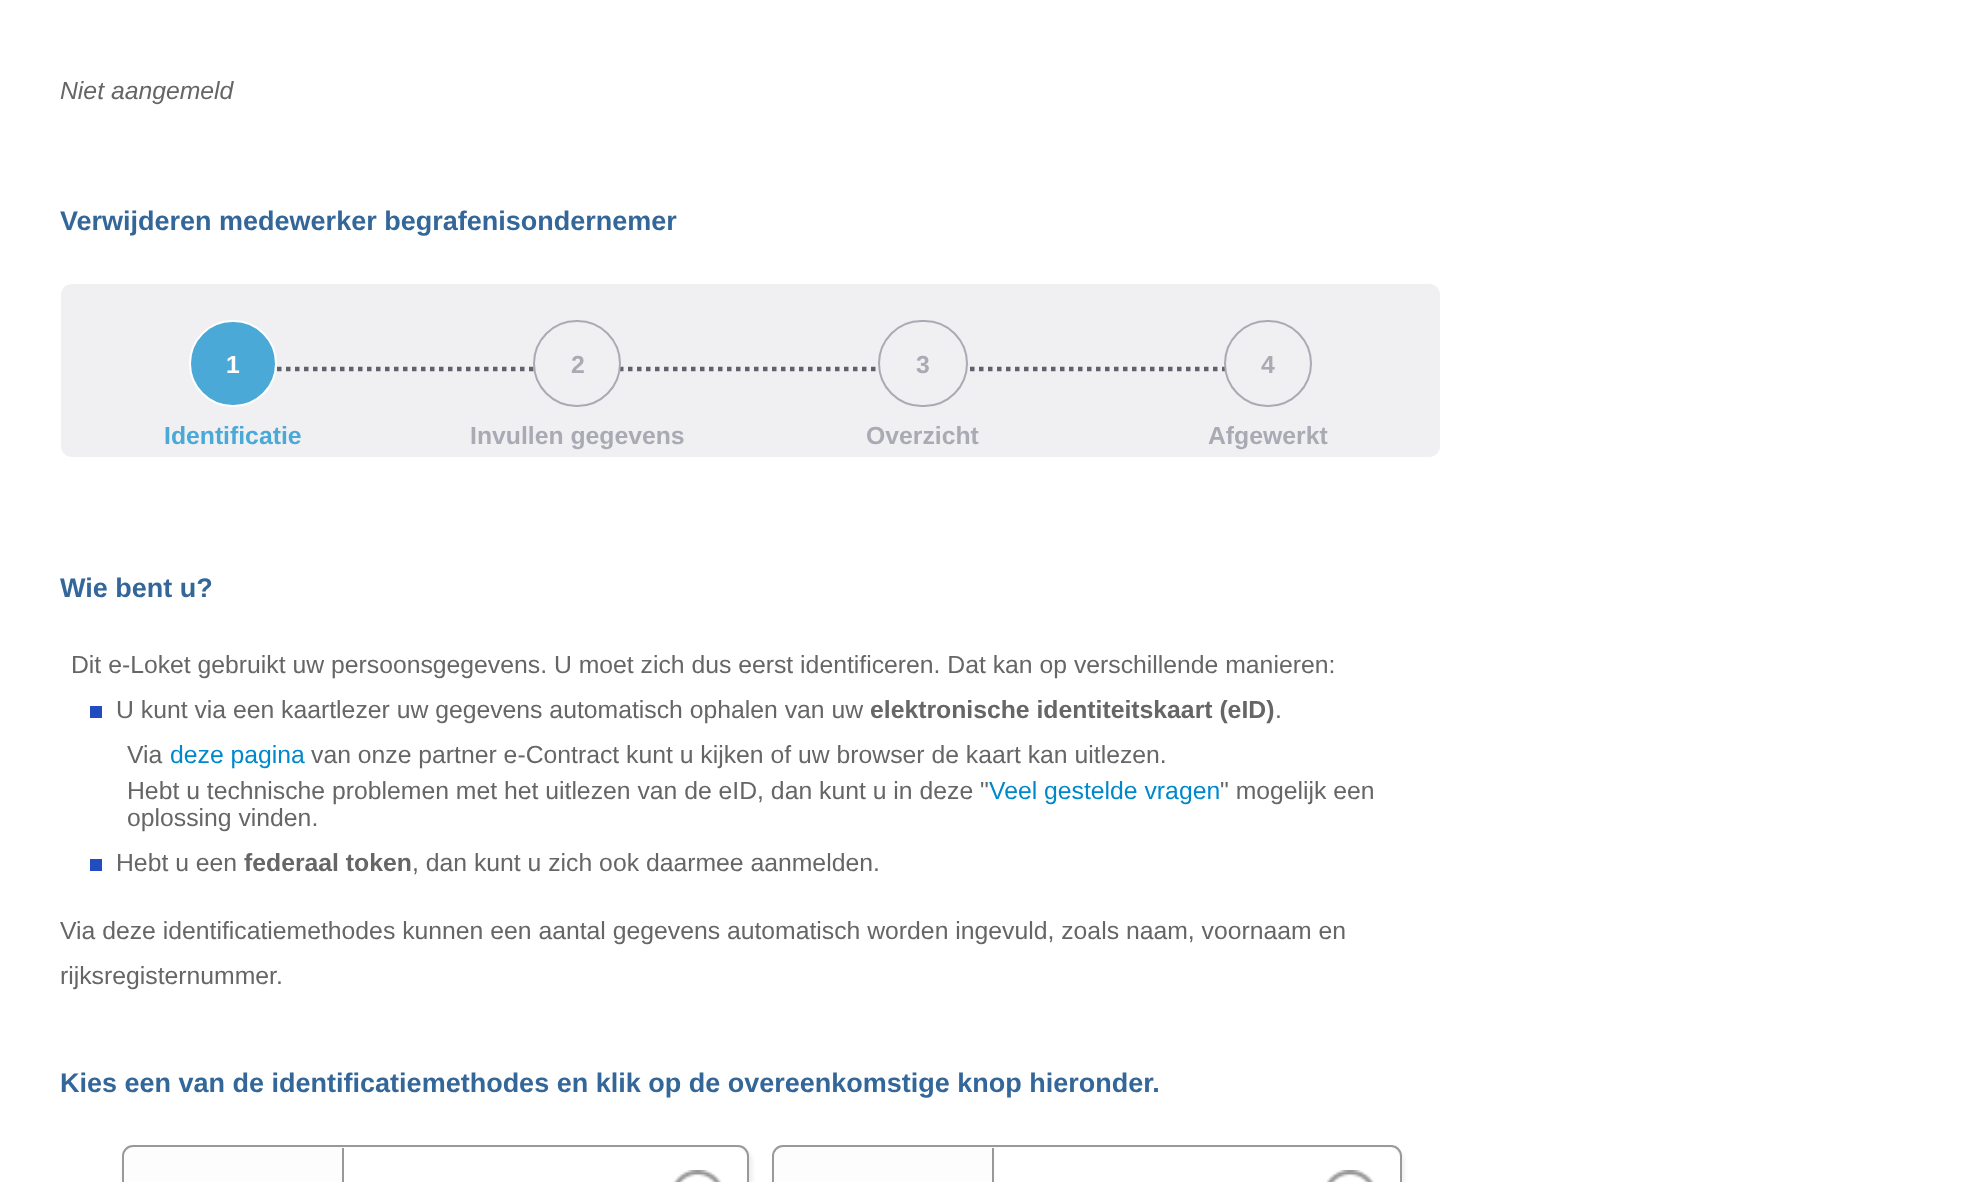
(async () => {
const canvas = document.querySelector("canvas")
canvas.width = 1961
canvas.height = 1182
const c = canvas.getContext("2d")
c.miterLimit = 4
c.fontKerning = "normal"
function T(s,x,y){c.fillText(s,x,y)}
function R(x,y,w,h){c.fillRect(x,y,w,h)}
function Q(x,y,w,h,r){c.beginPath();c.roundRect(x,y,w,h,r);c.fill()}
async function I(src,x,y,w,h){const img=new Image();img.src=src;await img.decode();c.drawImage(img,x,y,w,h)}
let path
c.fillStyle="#fff"
R(0,0,1961,1182)
c.font="italic 24.75px Liberation Sans"
c.fillStyle="#666"
T("Niet aangemeld",60,99)
c.font="bold 27px Liberation Sans"
c.fillStyle="#369"
T("Verwijderen medewerker begrafenisondernemer",60,230)
c.fillStyle="#f0f0f2"
Q(61,284,1379,173,11)
path = new Path2D("M232 369h1035")
c.strokeStyle="#61616b"
c.lineWidth=4.5
c.setLineDash([4.5,4.5])
c.stroke(path)
c.fillStyle="#4aa9d7"
c.beginPath()
c.roundRect(190,321,86,85,42.5)
c.fill()
c.strokeStyle="#fff"
c.lineWidth=2
c.setLineDash([])
c.stroke()
c.font="bold 24.75px Liberation Sans"
c.fillStyle="#fff"
T("1",226,373)
c.fillStyle="#4aa9d7"
T("Identificatie",164,444)
c.fillStyle="#f0f0f2"
c.beginPath()
c.roundRect(534,321,86,85,42.5)
c.fill()
c.strokeStyle="#aaaab4"
c.stroke()
c.fillStyle="#aaaab4"
T("2",571,373)
T("Invullen gegevens",470,444)
c.fillStyle="#f0f0f2"
c.beginPath()
c.roundRect(879,321,88,85,42.5)
c.fill()
c.stroke()
c.fillStyle="#aaaab4"
T("3",916,373)
T("Overzicht",866,444)
c.fillStyle="#f0f0f2"
c.beginPath()
c.roundRect(1225,321,86,85,42.5)
c.fill()
c.stroke()
c.fillStyle="#aaaab4"
T("4",1261,373)
T("Afgewerkt",1208,444)
c.font="bold 27px Liberation Sans"
c.fillStyle="#369"
T("Wie bent u?",60,597)
c.font="24.75px Liberation Sans"
c.fillStyle="#666"
T("Dit e-Loket gebruikt uw persoonsgegevens. U moet zich dus eerst identificeren. Dat kan op verschillende manieren:",71,673)
c.fillStyle="#234cc0"
R(90,706,12,12)
c.fillStyle="#666"
T("U kunt via een kaartlezer uw gegevens automatisch ophalen van uw",116,718)
c.font="bold 24.75px Liberation Sans"
T("elektronische identiteitskaart (eID)",870,718)
c.font="24.75px Liberation Sans"
T(".",1275,718)
T("Via",127,763)
c.fillStyle="#08c"
T("deze pagina",170,763)
c.fillStyle="#666"
T("van onze partner e-Contract kunt u kijken of uw browser de kaart kan uitlezen.",311,763)
T("Hebt u technische problemen met het uitlezen van de eID, dan kunt u in deze \"",127,799)
c.fillStyle="#08c"
T("Veel gestelde vragen",989,799)
c.fillStyle="#666"
T("\" mogelijk een",1220,799)
T("oplossing vinden.",127,826)
c.fillStyle="#234cc0"
R(90,859,12,12)
c.fillStyle="#666"
T("Hebt u een",116,871)
c.font="bold 24.75px Liberation Sans"
T("federaal token",244,871)
c.font="24.75px Liberation Sans"
T(", dan kunt u zich ook daarmee aanmelden.",412,871)
T("Via deze identificatiemethodes kunnen een aantal gegevens automatisch worden ingevuld, zoals naam, voornaam en",60,939)
T("rijksregisternummer.",60,984)
c.font="bold 27px Liberation Sans"
c.fillStyle="#369"
T("Kies een van de identificatiemethodes en klik op de overeenkomstige knop hieronder.",60,1092)
c.fillStyle="#ececec"
c.filter="blur(2px)"
c.beginPath()
c.roundRect(124,1150,628,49,11)
c.fill()
c.filter="none"
c.beginPath()
c.roundRect(123,1146,625,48,10)
c.strokeStyle="#999"
c.stroke()
c.fillStyle="#fdfdfe"
path = new Path2D("M135 1148h209v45h-209c-6 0-11-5-11-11v-23c0-6 5-11 11-11z")
c.fill(path)
c.fillStyle="#999"
R(342,1148,2,34)
c.fillStyle="#fff"
path = new Path2D("M344 1148h392c6 0 11 5 11 11v23c0 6-5 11-11 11h-392z")
c.fill(path)
await I("1.png",673,1170,49,12)
c.fillStyle="#ececec"
c.filter="blur(2px)"
c.beginPath()
c.roundRect(774,1150,630,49,11)
c.fill()
c.filter="none"
c.beginPath()
c.roundRect(773,1146,628,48,10)
c.stroke()
c.fillStyle="#fdfdfe"
path = new Path2D("M785 1148h210v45h-210c-6 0-11-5-11-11v-23c0-6 5-11 11-11z")
c.fill(path)
c.fillStyle="#999"
R(992,1148,2,34)
c.fillStyle="#fff"
path = new Path2D("M995 1148h394c6 0 11 5 11 11v23c0 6-5 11-11 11h-394z")
c.fill(path)
await I("2.png",1326,1170,49,12)
})()
